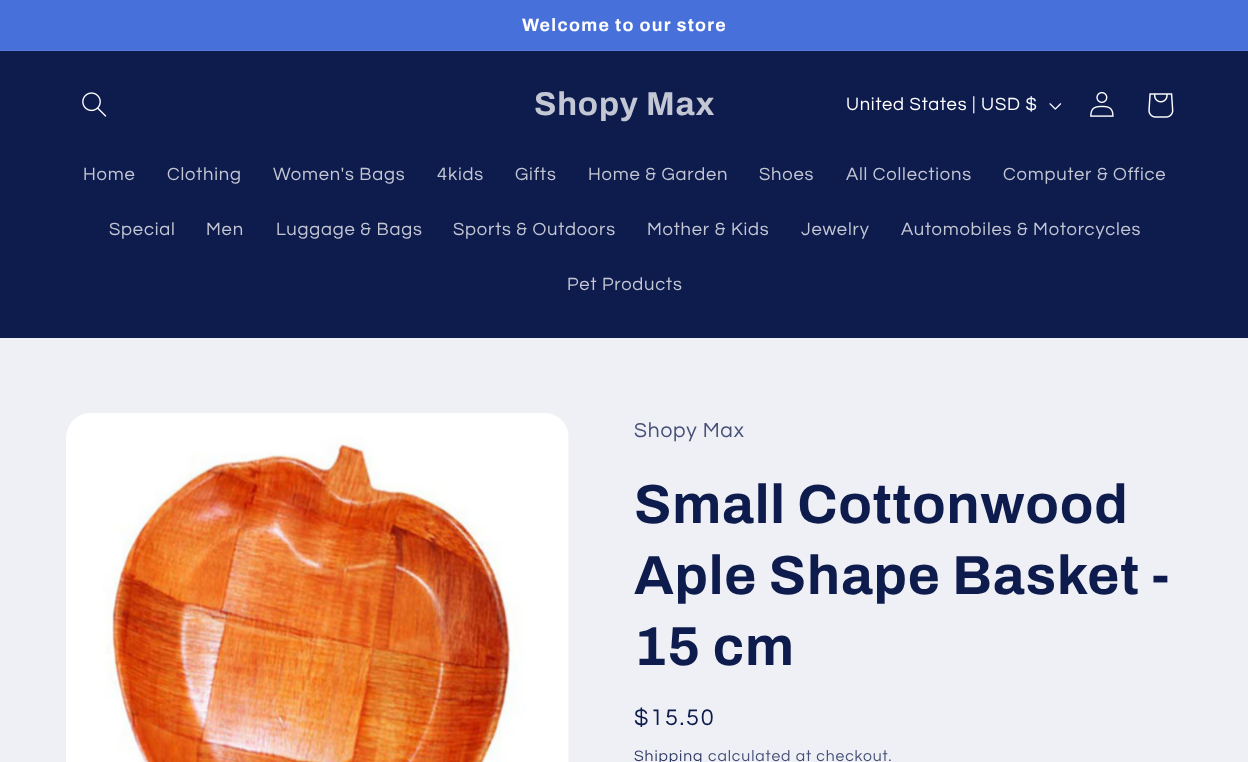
(async () => {
const canvas = document.querySelector("canvas")
canvas.width = 1248
canvas.height = 762
const c = canvas.getContext("2d")
c.miterLimit = 4
c.fontKerning = "normal"
function T(s,x,y){c.fillText(s,x,y)}
function R(x,y,w,h){c.fillRect(x,y,w,h)}
async function I(src,x,y,w,h){const img=new Image();img.src=src;await img.decode();c.drawImage(img,x,y,w,h)}
c.fillStyle="#eff0f5"
R(0,0,1248,762)
c.fillStyle="#4770db"
R(0,0,1248,50)
c.fillStyle="#567bde"
R(0,50,1248,1)
c.letterSpacing="1.3px"
c.font="bold 17.9px Archivo"
c.fillStyle="#fff"
T("Welcome to our store",522,31)
c.fillStyle="#0e1b4d"
R(0,51,1248,287)
await I("1.png",82,92,25,25)
c.letterSpacing="0.8px"
c.font="bold 33px Archivo"
c.fillStyle="#c3c6d3"
T("Shopy Max",534,115)
c.font="18.4px Questrial"
c.fillStyle="#fff"
T("United States | USD $",846,110)
await I("2.png",1049,103,13,7)
await I("3.png",1090,91,24,26)
await I("4.png",1148,93,26,25)
c.fillStyle="#c3c6d3"
T("Home",83,180)
T("Clothing",167,180)
T("Women's Bags",273,180)
T("4kids",437,180)
T("Gifts",515,180)
T("Home & Garden",588,180)
T("Shoes",759,180)
T("All Collections",846,180)
T("Computer & Office",1003,180)
T("Special",109,235)
T("Men",206,235)
T("Luggage & Bags",276,235)
T("Sports & Outdoors",453,235)
T("Mother & Kids",647,235)
T("Jewelry",801,235)
T("Automobiles & Motorcycles",901,235)
T("Pet Products",567,290)
await I("5.png",66,413,503,349)
c.font="21px Questrial"
c.fillStyle="#465077"
T("Shopy Max",634,437)
c.font="bold 55px Archivo"
c.fillStyle="#0e1b4d"
T("Small Cottonwood",634,523)
T("Aple Shape Basket -",634,594)
T("15 cm",634,665)
c.letterSpacing="1.75px"
c.font="23.5px Questrial"
T("$15.50",634,725)
c.letterSpacing="0.9px"
c.font="15.75px Questrial"
c.fillStyle="#303b66"
T("Shipping",634,761)
c.fillStyle="#465077"
T("calculated at checkout.",708,761)
})()
